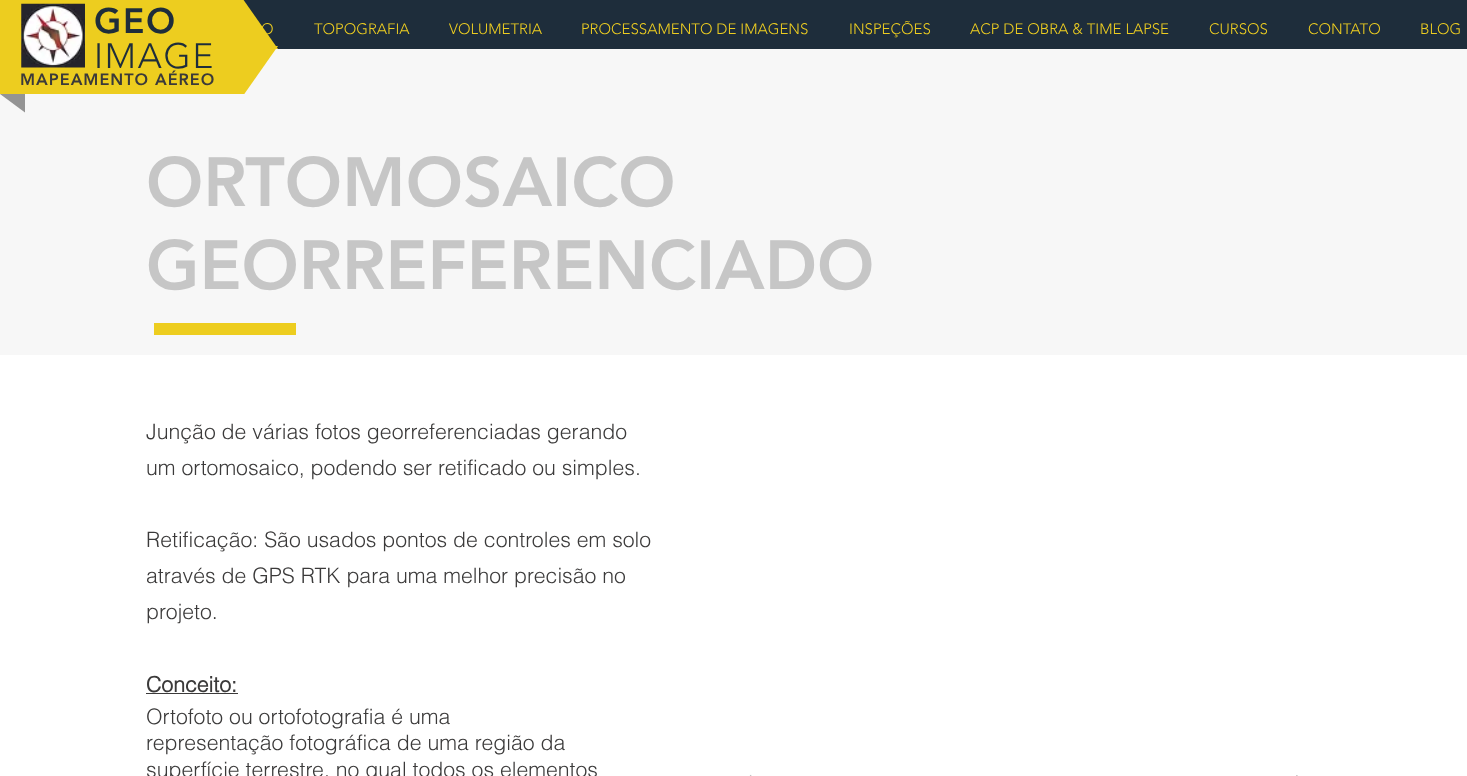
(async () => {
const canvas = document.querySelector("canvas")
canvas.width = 1467
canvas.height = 776
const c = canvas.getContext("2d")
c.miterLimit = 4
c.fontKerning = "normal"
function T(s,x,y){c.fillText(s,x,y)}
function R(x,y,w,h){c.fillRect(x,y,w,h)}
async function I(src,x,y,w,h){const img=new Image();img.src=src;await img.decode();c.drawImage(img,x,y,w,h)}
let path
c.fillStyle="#f7f7f7"
R(0,0,1467,776)
c.fillStyle="#1e2d3b"
R(243,0,1224,49)
c.save()
c.beginPath()
c.rect(0,0,278,94)
c.clip()
c.fillStyle="#edcd1f"
path = new Path2D("M-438 46h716l-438 624h-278z")
c.fill(path)
c.restore()
c.font="300 15px 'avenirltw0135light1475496'"
c.fillStyle="#edcd21"
T("O",261,34)
c.fillStyle="#edcd1f"
path = new Path2D("M278 49h-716v-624h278z")
c.fill(path)
await I("1.png",21,3,64,65)
c.letterSpacing="1.75px"
c.font="900 35px 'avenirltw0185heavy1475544'"
c.fillStyle="#1e2d3b"
T("GEO",94,33)
c.font="300 35px 'avenirltw0135light1475496'"
T("IMAGE",94,68)
c.letterSpacing="1px"
c.font="900 16.25px 'avenirltw0185heavy1475544'"
c.fillStyle="#3b3a3a"
T("MAPEAMENTO AÉREO",20,85)
c.fillStyle="#949494"
path = new Path2D("M25 94v18.5l-25-18.5z")
c.fill(path)
c.letterSpacing="0px"
c.font="300 15px 'avenirltw0135light1475496'"
c.fillStyle="#edcd21"
T("TOPOGRAFIA",314,34)
T("VOLUMETRIA",449,34)
T("PROCESSAMENTO DE IMAGENS",581,34)
T("INSPEÇÕES",849,34)
T("ACP DE OBRA & TIME LAPSE",970,34)
T("CURSOS",1209,34)
T("CONTATO",1308,34)
T("BLOG",1420,34)
c.font="900 68.75px 'avenirltw0185heavy1475544'"
c.fillStyle="#c6c6c6"
T("ORTOMOSAICO",146,206)
T("GEORREFERENCIADO",146,289)
c.fillStyle="#edcd1f"
R(154,323,142,12)
c.fillStyle="#fff"
R(0,355,1467,421)
c.font="300 21.25px helvetica"
c.fillStyle="#3b3a3a"
T("Junção de várias fotos georreferenciadas gerando",146,439)
T("um ortomosaico, podendo ser retificado ou simples.",146,475)
T("Retificação: São usados pontos de controles em solo",146,547)
T("através de GPS RTK para uma melhor precisão no",146,583)
T("projeto.",146,619)
c.font="bold 21.25px helvetica"
T("Conceito:",146,692)
R(146,693,92,1)
c.font="300 21.25px helvetica"
T("Ortofoto ou ortofotografia é uma",146,724)
T("representação fotográfica de uma região da",146,750)
T("superfície terrestre, no qual todos os elementos",146,777)
await I("2.png",749,774,3,2)
await I("3.png",1296,775,2,1)
})()
